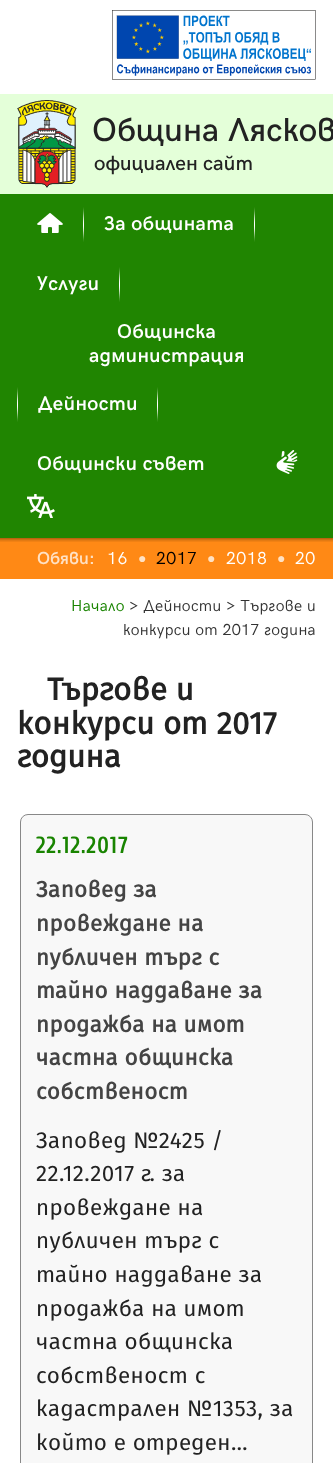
(async () => {
const canvas = document.querySelector("canvas")
canvas.width = 333
canvas.height = 1463
const c = canvas.getContext("2d")
c.miterLimit = 4
c.fontKerning = "normal"
function T(s,x,y){c.fillText(s,x,y)}
function R(x,y,w,h){c.fillRect(x,y,w,h)}
async function I(src,x,y,w,h){const img=new Image();img.src=src;await img.decode();c.drawImage(img,x,y,w,h)}
c.fillStyle="#fff"
R(0,0,333,1463)
await I("1.png",112,10,204,70)
c.fillStyle="#e4ffd9"
R(0,94,333,100)
await I("2.png",17,100,60,88)
c.font="500 33.5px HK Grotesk"
c.fillStyle="#222"
T("Община Лясков",92,141)
c.font="500 20.75px HK Grotesk"
T("официален сайт",94,170)
c.fillStyle="#208501"
R(0,194,333,344)
await I("3.png",37,213,26,20)
await I("4.png",83,207,1,35)
c.letterSpacing="0.4px"
c.font="600 20px HK Grotesk"
c.fillStyle="#fff"
T("За общината",104,230)
await I("4.png",254,207,1,35)
T("Услуги",37,290)
await I("4.png",119,267,1,35)
T("Общинска",117,338)
T("администрация",89,362)
await I("4.png",17,387,1,35)
T("Дейности",38,410)
await I("4.png",157,387,1,35)
T("Общински съвет",37,470)
await I("5.png",276,450,22,24)
await I("6.png",27,494,28,24)
c.fillStyle="#ff8915"
R(0,538,333,41)
await I("7.png",0,538,333,4)
c.letterSpacing="0px"
c.font="600 17.5px HK Grotesk"
c.fillStyle="#ffe1c4"
T("Обяви:",37,564)
c.letterSpacing="0.5px"
c.font="17.5px HK Grotesk"
c.fillStyle="#fff"
T("16",107,564)
c.letterSpacing="0px"
c.font="14px Liberation Serif"
c.fillStyle="#ffe1c4"
T("●",138,563)
c.letterSpacing="0.5px"
c.font="17.5px HK Grotesk"
c.fillStyle="#000"
T("2017",156,564)
c.letterSpacing="0px"
c.font="14px Liberation Serif"
c.fillStyle="#ffe1c4"
T("●",207,563)
c.letterSpacing="0.5px"
c.font="17.5px HK Grotesk"
c.fillStyle="#fff"
T("2018",226,564)
c.letterSpacing="0px"
c.font="14px Liberation Serif"
c.fillStyle="#ffe1c4"
T("●",277,563)
c.letterSpacing="0.5px"
c.font="17.5px HK Grotesk"
c.fillStyle="#fff"
T("20",295,564)
c.letterSpacing="0.3px"
c.font="16px HK Grotesk"
c.fillStyle="#198400"
T("Начало",71,611)
c.fillStyle="#333"
T("> Дейности > Търгове и",129,611)
T("конкурси от 2017 година",123,635)
c.letterSpacing="0.25px"
c.font="bold 31.25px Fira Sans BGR"
c.fillStyle="#222"
T("Търгове и",47,700)
T("конкурси от 2017",17,734)
T("година",17,767)
c.fillStyle="#f8f8f8"
c.beginPath()
c.roundRect(20.5,814.5,292,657,7.5)
c.fill()
c.strokeStyle="#888"
c.stroke()
c.letterSpacing="1.75px"
c.font="bold 22.4px Cuprum"
c.fillStyle="#198400"
T("22.12.2017",36,853)
c.letterSpacing="0.45px"
c.font="bold 22.4px Fira Sans BGR"
c.fillStyle="#444"
T("Заповед за",36,897)
T("провеждане на",36,931)
T("публичен търг с",36,965)
T("тайно наддаване за",36,998)
T("продажба на имот",36,1032)
T("частна общинска",36,1065)
T("собственост",36,1099)
c.font="22.4px Fira Sans BGR"
c.fillStyle="#222"
T("Заповед №2425 /",36,1148)
T("22.12.2017 г. за",36,1181)
T("провеждане на",36,1215)
T("публичен търг с",36,1248)
T("тайно наддаване за",36,1282)
T("продажба на имот",36,1316)
T("частна общинска",36,1349)
T("собственост с",36,1383)
T("кадастрален №1353, за",36,1416)
T("който е отреден…",36,1450)
})()
